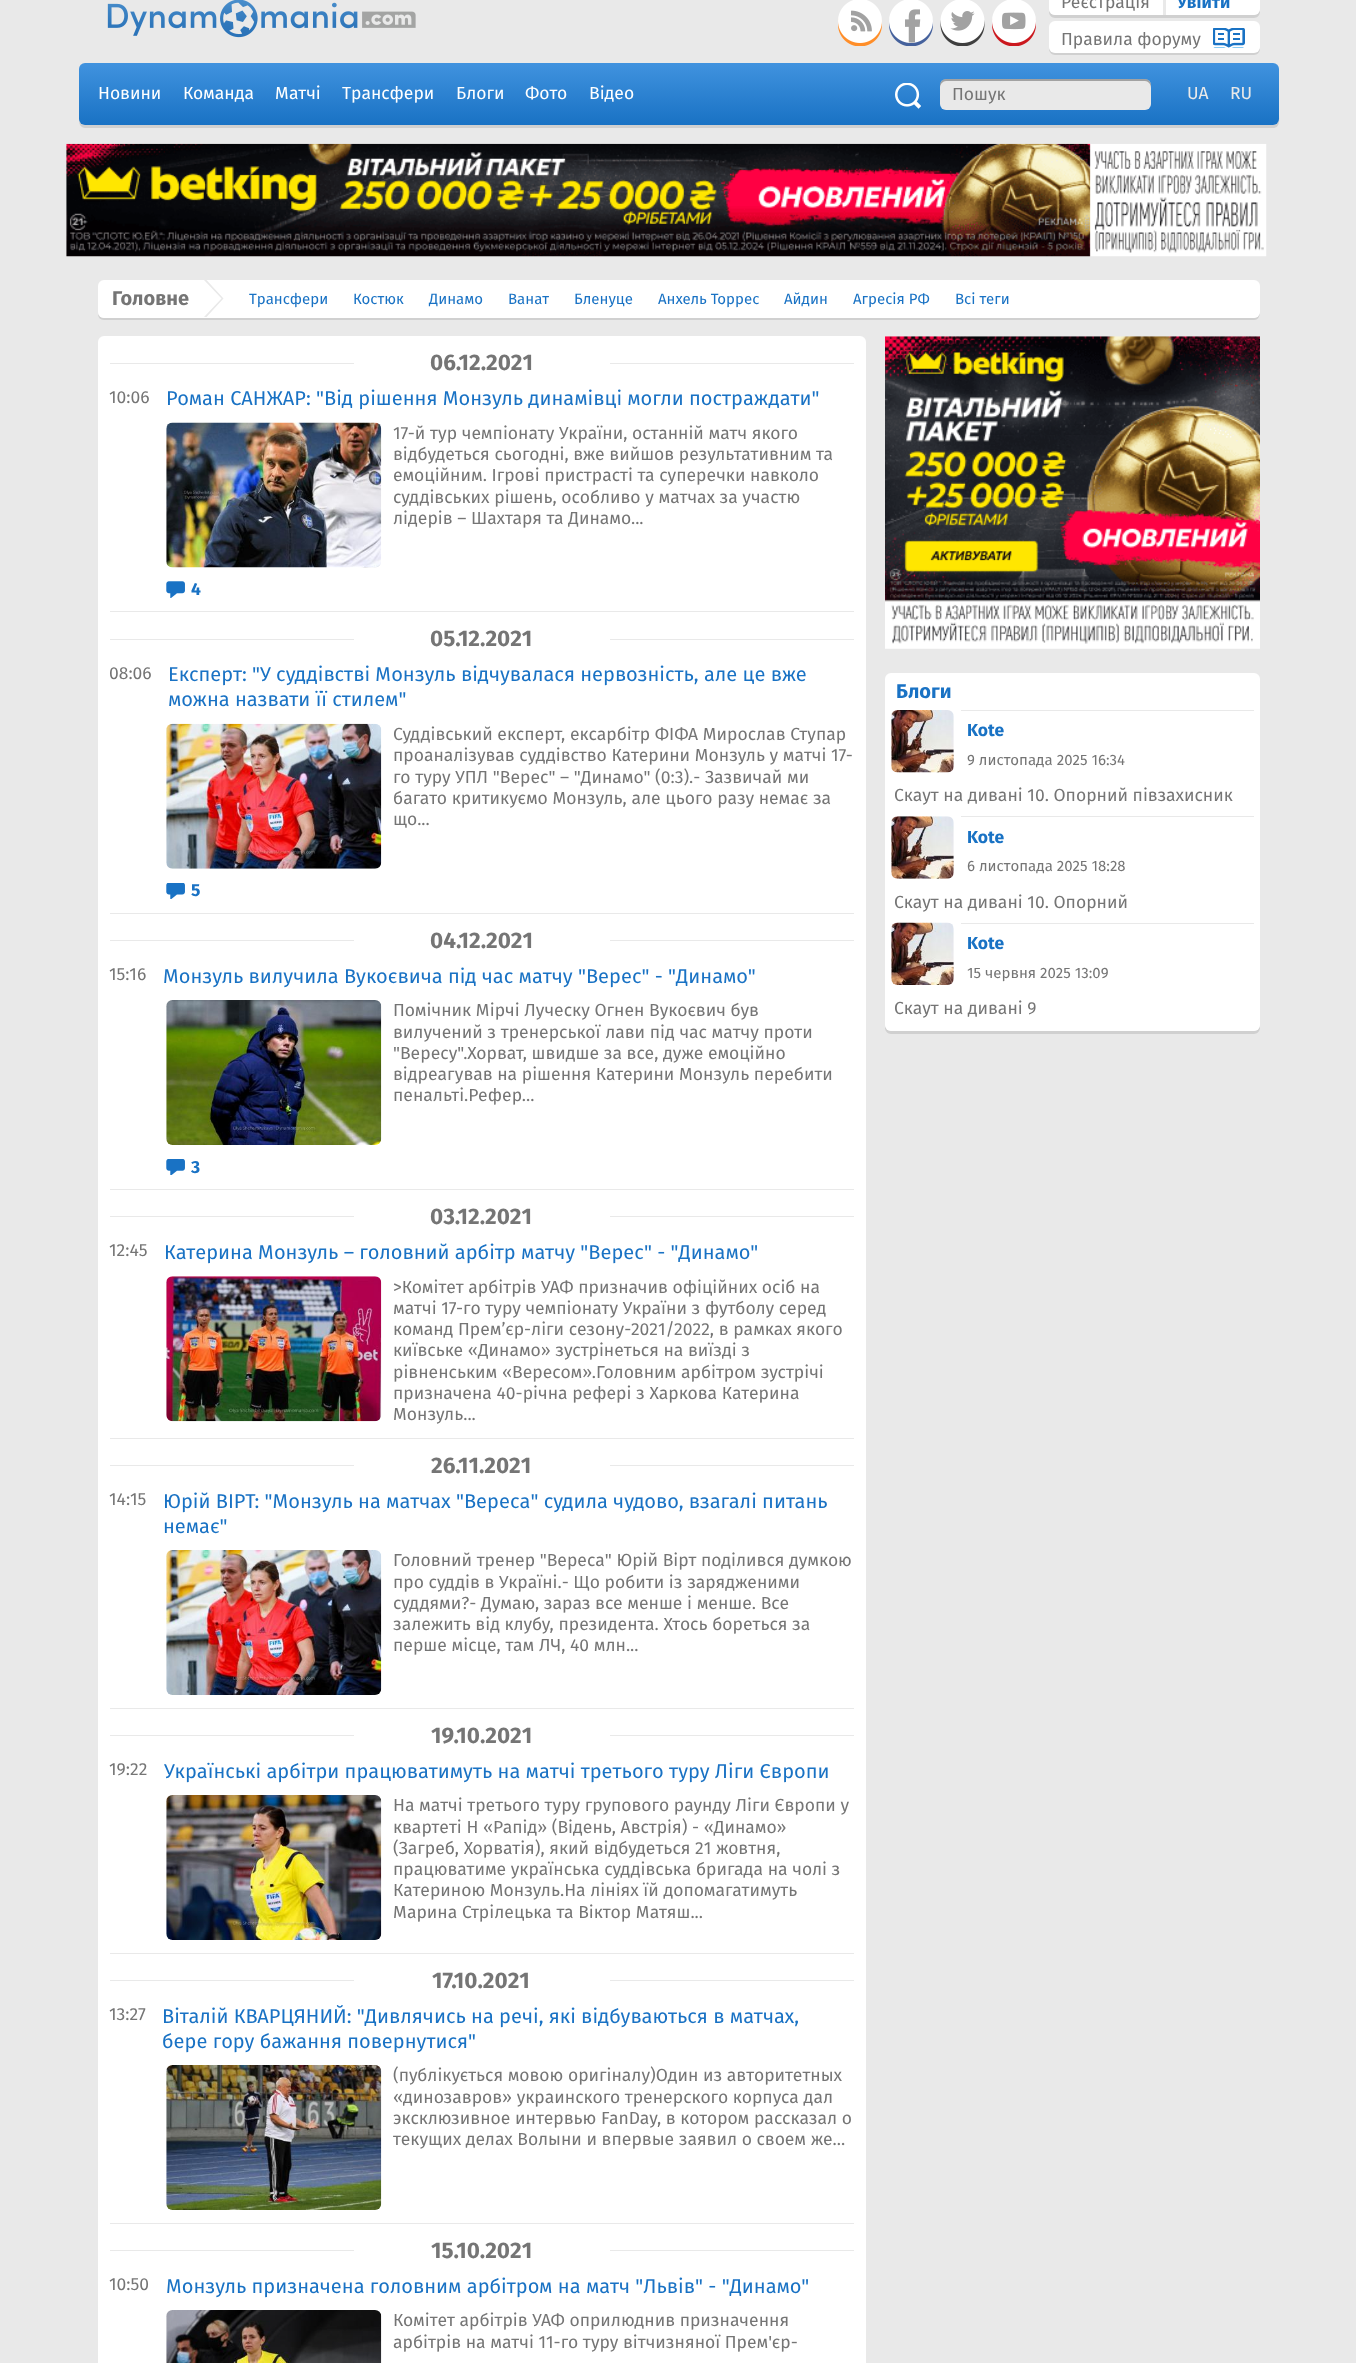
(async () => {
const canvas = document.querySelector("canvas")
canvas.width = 1356
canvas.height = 2363
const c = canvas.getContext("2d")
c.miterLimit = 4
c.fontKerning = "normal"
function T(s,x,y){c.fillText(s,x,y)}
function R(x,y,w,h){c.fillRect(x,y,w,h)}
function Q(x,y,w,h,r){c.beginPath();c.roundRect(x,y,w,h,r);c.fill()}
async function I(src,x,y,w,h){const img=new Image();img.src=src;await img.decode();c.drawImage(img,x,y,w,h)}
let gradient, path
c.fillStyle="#e9e9e9"
R(0,0,1356,2363)
await I("1.png",107,0,309,38)
await I("2.png",838,0,44,46)
await I("3.png",889,0,44,46)
await I("4.png",940,0,45,46)
await I("5.png",992,0,44,46)
c.fillStyle="#d0d0d0"
path = new Path2D("M1049 11v1c0 3 3 6 6 6h199c3 0 6-3 6-6v-3c0 3-3 6-6 6h-199c-3 0-5-2-6-4z")
c.fill(path)
c.fillStyle="#fff"
Q(1049,-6,211,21,6)
c.fillStyle="#e9e9e9"
R(1163,0,3,15)
c.font="17.5px Fira Sans"
c.fillStyle="#757575"
T("Реєстрація",1061,8)
c.font="bold 17.5px Fira Sans"
c.fillStyle="#1972c4"
T("Увійти",1177,8)
c.fillStyle="#d0d0d0"
path = new Path2D("M1049 48v1c0 3 3 6 6 6h199c3 0 6-3 6-6v-3c0 4-3 6-6 6h-199c-3 0-5-1-6-4z")
c.fill(path)
c.fillStyle="#fff"
Q(1049,21,211,32,6)
c.font="17.5px Fira Sans"
c.fillStyle="#757575"
T("Правила форуму",1061,45)
await I("6.png",1213,28,32,20)
c.fillStyle="#d0d0d0"
path = new Path2D("M79 121c0 3 2 7 6 7h1188c8 0 6-10 6-14v-45v50c0 3-3 6-7 6h-1187c-3 0-5-2-6-4z")
c.fill(path)
gradient = c.createLinearGradient(679,62,679,125)
gradient.addColorStop(0,"#4193df")
gradient.addColorStop(1,"#1972c4")
c.fillStyle = gradient
Q(79,63,1200,62,6)
c.fillStyle="#fff"
T("Новини",98,99)
T("Команда",183,99)
T("Матчі",275,99)
T("Трансфери",342,99)
T("Блоги",456,99)
T("Фото",525,99)
T("Відео",589,99)
await I("7.png",895,83,26,26)
c.fillStyle="#e9e9e9"
Q(940,79,211,31,6)
c.fillStyle="#0000004d"
path = new Path2D("M946 81h199c3 0 6 3 6 7v-3c0-3-3-6-6-6h-199c-3 0-6 3-6 6v3c0-4 3-7 6-7z")
c.fill(path)
c.fillStyle="#757575"
T("Пошук",952,100)
c.fillStyle="#e9e9e9"
T("UA",1187,99)
T("RU",1230,99)
await I("8.png",66,143,1201,114)
c.fillStyle="#d0d0d0"
path = new Path2D("M98 314c0 3 2 6 6 6h1150c5 0 6-5 6-9c0 4-3 7-6 7h-1150c-3 0-5-2-6-4z")
c.fill(path)
c.fillStyle="#fff"
Q(98,280,1162,38,6)
c.font="bold 20px Fira Sans"
c.fillStyle="#757575"
T("Головне",112,305)
c.fillStyle="#e9e9e9"
path = new Path2D("M206.5 317h-2.5l17.5-18.5l-17.5-18.5h2.5l17 18.5z")
c.fill(path)
c.font="15px Fira Sans"
c.fillStyle="#1972c4"
T("Трансфери",249,304)
T("Костюк",353,304)
T("Динамо",429,304)
T("Ванат",508,304)
T("Бленуце",574,304)
T("Анхель Торрес",658,304)
T("Айдин",784,304)
T("Агресія РФ",853,304)
T("Всі теги",955,304)
c.fillStyle="#fff"
Q(98,336,768,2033,6)
c.fillStyle="#e9e9e9"
R(110,363,244,1)
c.font="bold 22.5px Fira Sans"
c.fillStyle="#757575"
T("06.12.2021",430,370)
c.fillStyle="#e9e9e9"
R(610,363,244,1)
R(110,611,744,1)
c.font="17.5px Fira Sans"
c.fillStyle="#757575"
T("10:06",109,403)
c.font="20px Fira Sans"
c.fillStyle="#1972c4"
T("Роман САНЖАР: \"Від рішення Монзуль динамівці могли постраждати\"",166,405)
await I("9.png",166,422,216,146)
c.font="17.5px Fira Sans"
c.fillStyle="#757575"
T("17-й тур чемпіонату України, останній матч якого",393,439)
T("відбудеться сьогодні, вже вийшов результативним та",393,460)
T("емоційним. Ігрові пристрасті та суперечки навколо",393,481)
T("суддівських рішень, особливо у матчах за участю",393,503)
T("лідерів – Шахтаря та Динамо...",393,524)
await I("10.png",166,581,19,17)
c.font="bold 17.5px Fira Sans"
c.fillStyle="#1972c4"
T("4",191,595)
c.fillStyle="#e9e9e9"
R(110,639,244,1)
c.font="bold 22.5px Fira Sans"
c.fillStyle="#757575"
T("05.12.2021",430,646)
c.fillStyle="#e9e9e9"
R(610,639,244,1)
R(110,913,744,1)
c.font="17.5px Fira Sans"
c.fillStyle="#757575"
T("08:06",109,679)
c.font="20px Fira Sans"
c.fillStyle="#1972c4"
T("Експерт: \"У суддівстві Монзуль відчувалася нервозність, але це вже",168,681)
T("можна назвати її стилем\"",168,706)
await I("11.png",166,723,216,146)
c.font="17.5px Fira Sans"
c.fillStyle="#757575"
T("Суддівський експерт, ексарбітр ФІФА Мирослав Ступар",393,740)
T("проаналізував суддівство Катерини Монзуль у матчі 17-",393,761)
T("го туру УПЛ \"Верес\" – \"Динамо\" (0:3).- Зазвичай ми",393,783)
T("багато критикуємо Монзуль, але цього разу немає за",393,804)
T("що...",393,825)
await I("12.png",166,883,19,16)
c.font="bold 17.5px Fira Sans"
c.fillStyle="#1972c4"
T("5",191,896)
c.fillStyle="#e9e9e9"
R(110,940,244,1)
c.font="bold 22.5px Fira Sans"
c.fillStyle="#757575"
T("04.12.2021",430,948)
c.fillStyle="#e9e9e9"
R(610,940,244,1)
R(110,1189,744,1)
c.font="17.5px Fira Sans"
c.fillStyle="#757575"
T("15:16",109,980)
c.font="20px Fira Sans"
c.fillStyle="#1972c4"
T("Монзуль вилучила Вукоєвича під час матчу \"Верес\" - \"Динамо\"",163,983)
await I("13.png",166,1000,216,145)
c.font="17.5px Fira Sans"
c.fillStyle="#757575"
T("Помічник Мірчі Луческу Огнен Вукоєвич був",393,1016)
T("вилучений з тренерської лави під час матчу проти",393,1038)
T("\"Вересу\".Хорват, швидше за все, дуже емоційно",393,1059)
T("відреагував на рішення Катерини Монзуль перебити",393,1080)
T("пенальті.Рефер...",393,1101)
await I("14.png",166,1159,19,16)
c.font="bold 17.5px Fira Sans"
c.fillStyle="#1972c4"
T("3",191,1173)
c.fillStyle="#e9e9e9"
R(110,1216,244,1)
c.font="bold 22.5px Fira Sans"
c.fillStyle="#757575"
T("03.12.2021",430,1224)
c.fillStyle="#e9e9e9"
R(610,1216,244,1)
R(110,1438,744,1)
c.font="17.5px Fira Sans"
c.fillStyle="#757575"
T("12:45",109,1256)
c.font="20px Fira Sans"
c.fillStyle="#1972c4"
T("Катерина Монзуль – головний арбітр матчу \"Верес\" - \"Динамо\"",164,1259)
await I("15.png",166,1276,216,146)
c.font="17.5px Fira Sans"
c.fillStyle="#757575"
T(">Комітет арбітрів УАФ призначив офіційних осіб на",393,1293)
T("матчі 17-го туру чемпіонату України з футболу серед",393,1314)
T("команд Прем’єр-ліги сезону-2021/2022, в рамках якого",393,1335)
T("київське «Динамо» зустрінеться на виїзді з",393,1356)
T("рівненським «Вересом».Головним арбітром зустрічі",393,1378)
T("призначена 40-річна рефері з Харкова Катерина",393,1399)
T("Монзуль...",393,1420)
c.fillStyle="#e9e9e9"
R(110,1465,244,1)
c.font="bold 22.5px Fira Sans"
c.fillStyle="#757575"
T("26.11.2021",431,1473)
c.fillStyle="#e9e9e9"
R(610,1465,244,1)
R(110,1708,744,1)
c.font="17.5px Fira Sans"
c.fillStyle="#757575"
T("14:15",109,1505)
c.font="20px Fira Sans"
c.fillStyle="#1972c4"
T("Юрій ВІРТ: \"Монзуль на матчах \"Вереса\" судила чудово, взагалі питань",163,1508)
T("немає\"",163,1533)
await I("16.png",166,1550,216,145)
c.font="17.5px Fira Sans"
c.fillStyle="#757575"
T("Головний тренер \"Вереса\" Юрій Вірт поділився думкою",393,1566)
T("про суддів в Україні.- Що робити із зарядженими",393,1588)
T("суддями?- Думаю, зараз все менше і менше. Все",393,1609)
T("залежить від клубу, президента. Хтось бореться за",393,1630)
T("перше місце, там ЛЧ, 40 млн...",393,1651)
c.fillStyle="#e9e9e9"
R(110,1735,244,1)
c.font="bold 22.5px Fira Sans"
c.fillStyle="#757575"
T("19.10.2021",431,1743)
c.fillStyle="#e9e9e9"
R(610,1735,244,1)
R(110,1953,744,1)
c.font="17.5px Fira Sans"
c.fillStyle="#757575"
T("19:22",109,1775)
c.font="20px Fira Sans"
c.fillStyle="#1972c4"
T("Українські арбітри працюватимуть на матчі третього туру Ліги Європи",164,1778)
await I("17.png",166,1795,216,145)
c.font="17.5px Fira Sans"
c.fillStyle="#757575"
T("На матчі третього туру групового раунду Ліги Європи у",393,1811)
T("квартеті Н «Рапід» (Відень, Австрія) - «Динамо»",393,1833)
T("(Загреб, Хорватія), який відбудеться 21 жовтня,",393,1854)
T("працюватиме українська суддівська бригада на чолі з",393,1875)
T("Катериною Монзуль.На лініях їй допомагатимуть",393,1896)
T("Марина Стрілецька та Віктор Матяш...",393,1918)
c.fillStyle="#e9e9e9"
R(110,1980,244,1)
c.font="bold 22.5px Fira Sans"
c.fillStyle="#757575"
T("17.10.2021",432,1988)
c.fillStyle="#e9e9e9"
R(610,1980,244,1)
R(110,2223,744,1)
c.font="17.5px Fira Sans"
c.fillStyle="#757575"
T("13:27",109,2020)
c.font="20px Fira Sans"
c.fillStyle="#1972c4"
T("Віталій КВАРЦЯНИЙ: \"Дивлячись на речі, які відбуваються в матчах,",162,2023)
T("бере гору бажання повернутися\"",162,2048)
await I("18.png",166,2065,216,145)
c.font="17.5px Fira Sans"
c.fillStyle="#757575"
T("(публікується мовою оригіналу)Один из авторитетных",393,2081)
T("«динозавров» украинского тренерского корпуса дал",393,2103)
T("эксклюзивное интервью FanDay, в котором рассказал о",393,2124)
T("текущих делах Волыни и впервые заявил о своем же...",393,2145)
c.fillStyle="#e9e9e9"
R(110,2250,244,1)
c.font="bold 22.5px Fira Sans"
c.fillStyle="#757575"
T("15.10.2021",431,2258)
c.fillStyle="#e9e9e9"
R(610,2250,244,1)
c.font="17.5px Fira Sans"
c.fillStyle="#757575"
T("10:50",109,2290)
c.font="20px Fira Sans"
c.fillStyle="#1972c4"
T("Монзуль призначена головним арбітром на матч \"Львів\" - \"Динамо\"",166,2293)
await I("19.png",166,2310,216,53)
c.font="17.5px Fira Sans"
c.fillStyle="#757575"
T("Комітет арбітрів УАФ оприлюднив призначення",393,2326)
T("арбітрів на матчі 11-го туру вітчизняної Прем'єр-",393,2348)
await I("20.png",885,336,375,313)
c.fillStyle="#d0d0d0"
path = new Path2D("M885 1025v3c0 3 3 6 6 6h363c3 0 6-3 6-6v-3c0 3-3 6-6 6h-363c-3 0-6-3-6-6z")
c.fill(path)
c.fillStyle="#fff"
Q(885,673,375,358,6)
c.font="bold 20px Fira Sans"
c.fillStyle="#1972c4"
T("Блоги",896,698)
await I("21.png",891,710,63,63)
c.fillStyle="#e9e9e9"
R(961,710,293,1)
c.font="bold 17.5px Fira Sans"
c.fillStyle="#1972c4"
T("Kote",967,736)
c.font="15px Fira Sans"
c.fillStyle="#757575"
T("9 листопада 2025 16:34",967,765)
c.font="17.5px Fira Sans"
T("Скаут на дивані 10. Опорний півзахисник",894,801)
await I("22.png",891,816,63,63)
c.fillStyle="#e9e9e9"
R(961,816,293,1)
c.font="bold 17.5px Fira Sans"
c.fillStyle="#1972c4"
T("Kote",967,843)
c.font="15px Fira Sans"
c.fillStyle="#757575"
T("6 листопада 2025 18:28",967,871)
c.font="17.5px Fira Sans"
T("Скаут на дивані 10. Опорний",894,908)
await I("23.png",891,922,63,63)
c.fillStyle="#e9e9e9"
R(961,923,293,1)
c.font="bold 17.5px Fira Sans"
c.fillStyle="#1972c4"
T("Kote",967,949)
c.font="15px Fira Sans"
c.fillStyle="#757575"
T("15 червня 2025 13:09",967,978)
c.font="17.5px Fira Sans"
T("Скаут на дивані 9",894,1014)
})()
